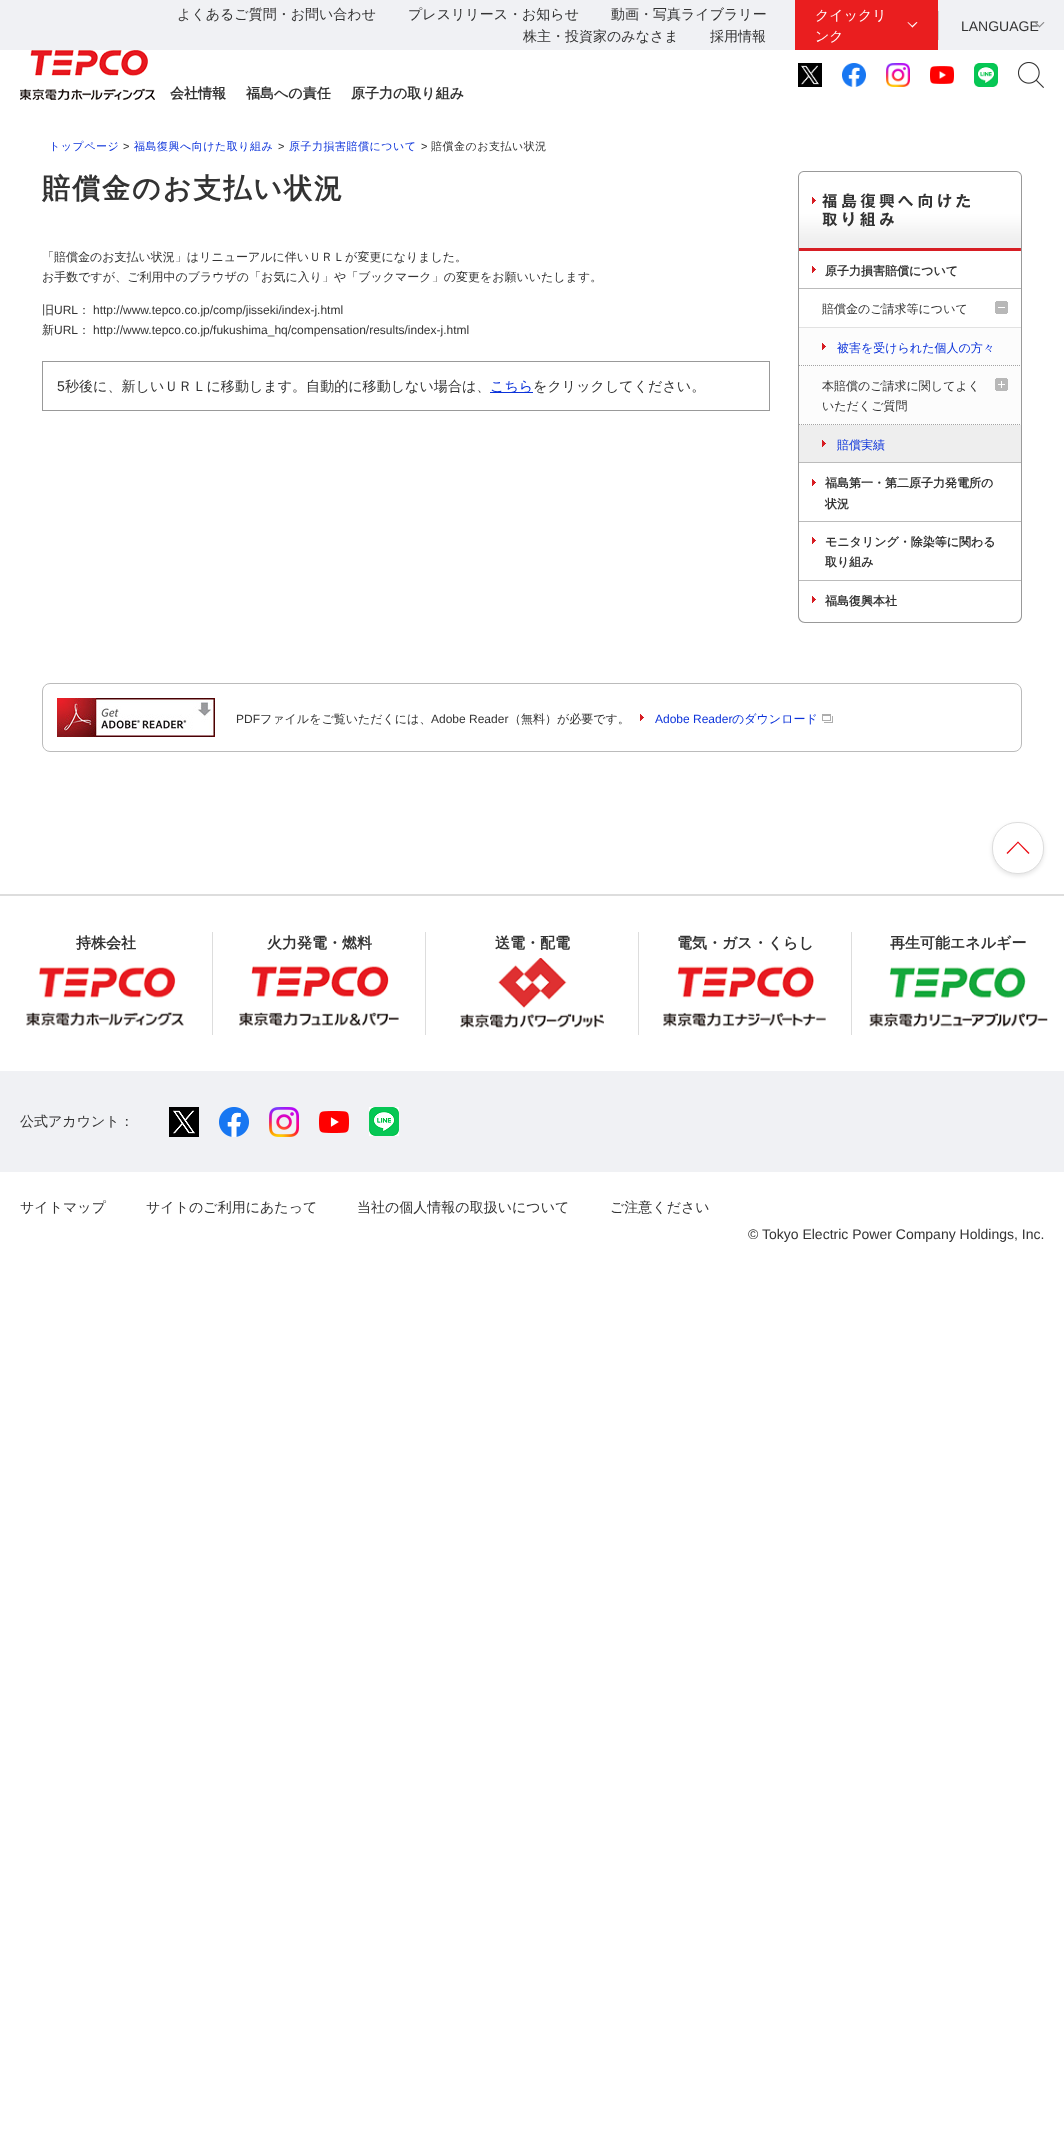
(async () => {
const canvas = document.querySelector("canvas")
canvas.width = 1064
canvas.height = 2154
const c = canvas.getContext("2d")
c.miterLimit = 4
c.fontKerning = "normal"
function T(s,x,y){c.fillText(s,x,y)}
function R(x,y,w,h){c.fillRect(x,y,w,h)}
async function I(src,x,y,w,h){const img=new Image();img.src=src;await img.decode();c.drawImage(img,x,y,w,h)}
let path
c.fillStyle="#fff"
R(0,0,1064,2154)
await I("1.png",20,50,135,50)
c.fillStyle="#f0f1f4"
R(0,0,1064,50)
c.font="500 14px WenQuanYi Zen Hei"
c.fillStyle="#333"
T("よくあるご質問・お問い合わせ",177,19)
T("プレスリリース・お知らせ",408,19)
T("動画・写真ライブラリー",611,19)
T("株主・投資家のみなさま",523,41)
T("採用情報",710,41)
c.fillStyle="#ea1e1f"
R(795,0,143,50)
c.fillStyle="#fff"
T("クイックリ",815,20)
path = new Path2D("M916.5 22l1 .5l-5 5l-1-1z")
c.fill(path)
path = new Path2D("M908 22l5 4.5l-.5 1l-5-5z")
c.fill(path)
T("ンク",815,41)
c.fillStyle="#ccc"
R(938,11,1,29)
c.font="14px Liberation Sans"
c.fillStyle="#333"
T("LANGUAGE",961,31)
c.fillStyle="#848485"
path = new Path2D("M1043.5 22l1 .5l-5 5l-.5-1z")
c.fill(path)
path = new Path2D("M1035.5 22l4.5 4.5l-.5 1l-5-5z")
c.fill(path)
await I("2.png",798,63,24,24)
await I("3.png",842,63,24,24)
await I("4.png",886,63,24,24)
await I("5.png",930,66,24,18)
await I("6.png",974,63,24,24)
await I("7.png",1018,62,26,26)
c.font="bold 14px WenQuanYi Zen Hei"
c.fillStyle="#333"
T("会社情報",170,98)
T("福島への責任",246,98)
T("原子力の取り組み",351,98)
c.letterSpacing="0.5px"
c.font="500 11px WenQuanYi Zen Hei"
c.fillStyle="#0c33da"
T("トップページ",49,150)
c.font="11px Liberation Sans"
c.fillStyle="#333"
T(">",123,150)
c.font="500 11px WenQuanYi Zen Hei"
c.fillStyle="#0c33da"
T("福島復興へ向けた取り組み",134,150)
c.font="11px Liberation Sans"
c.fillStyle="#333"
T(">",278,150)
c.font="500 11px WenQuanYi Zen Hei"
c.fillStyle="#0c33da"
T("原子力損害賠償について",289,150)
c.font="11px Liberation Sans"
c.fillStyle="#333"
T(">",421,150)
c.font="500 11px WenQuanYi Zen Hei"
T("賠償金のお支払い状況",431,150)
c.letterSpacing="2px"
c.font="bold 28px WenQuanYi Zen Hei"
T("賠償金のお支払い状況",42,198)
c.letterSpacing="0px"
c.font="500 12px WenQuanYi Zen Hei"
T("「賠償金のお支払い状況」はリニューアルに伴いＵＲＬが変更になりました。",42,261)
T("お手数ですが、ご利用中のブラウザの「お気に入り」や「ブックマーク」の変更をお願いいたします。",42,281)
T("旧",42,314)
c.font="12px Liberation Sans"
T("URL",54,314)
c.font="500 12px WenQuanYi Zen Hei"
T("：",78,314)
c.font="12px Liberation Sans"
T("http://www.tepco.co.jp/comp/jisseki/index-j.html",93,314)
c.font="500 12px WenQuanYi Zen Hei"
T("新",42,334)
c.font="12px Liberation Sans"
T("URL",54,334)
c.font="500 12px WenQuanYi Zen Hei"
T("：",78,334)
c.font="12px Liberation Sans"
T("http://www.tepco.co.jp/fukushima_hq/compensation/results/index-j.html",93,334)
c.strokeStyle="#999"
c.strokeRect(42.5,361.5,727,49)
c.font="14.05px Liberation Sans"
T("5",57,391)
c.font="500 14.05px WenQuanYi Zen Hei"
T("秒後に、新しいＵＲＬに移動します。自動的に移動しない場合は、",65,391)
c.fillStyle="#0c33da"
R(490,392,43,1)
T("こちら",490,391)
c.fillStyle="#333"
T("をクリックしてください。",533,391)
await I("8.png",798,171,224,80)
c.fillStyle="#999"
path = new Path2D("M798 251h224v365c0 4-3 7-7 7h-210c-4 0-7-3-7-7zm1 0h222v365c0 3-3 6-6 6h-210c-3 0-6-3-6-6z")
c.fill(path,"evenodd")
c.fillStyle="#bbb"
R(799,462,222,1)
await I("9.png",812,266,4,7)
c.font="bold 12px WenQuanYi Zen Hei"
c.fillStyle="#333"
T("原子力損害賠償について",825,275)
c.fillStyle="#bbb"
R(799,288,222,1)
c.font="500 12px WenQuanYi Zen Hei"
c.fillStyle="#333"
T("賠償金のご請求等について",822,313)
await I("10.png",995,301,13,13)
c.fillStyle="#fcfcfc"
R(799,328,222,97)
c.fillStyle="#e2e2e2"
R(799,327,222,1)
path = new Path2D("M799 365.5h222")
c.strokeStyle="#a4a4a4"
c.setLineDash([1,1])
c.stroke(path)
await I("11.png",822,343,4,7)
c.fillStyle="#0c33da"
T("被害を受けられた個人の方々",837,352)
path = new Path2D("M799 424.5h222")
c.stroke(path)
c.fillStyle="#333"
T("本賠償のご請求に関してよく",822,390)
await I("12.png",995,378,13,13)
T("いただくご質問",822,410)
c.fillStyle="#eee"
R(799,425,222,37)
await I("13.png",822,440,4,7)
c.fillStyle="#0c33da"
T("賠償実績",837,449)
c.fillStyle="#bbb"
R(799,521,222,1)
await I("9.png",812,479,4,7)
c.font="bold 12px WenQuanYi Zen Hei"
c.fillStyle="#333"
T("福島第一・第二原子力発電所の",825,487)
T("状況",825,508)
c.fillStyle="#bbb"
R(799,580,222,1)
await I("9.png",812,537,4,7)
c.fillStyle="#333"
T("モニタリング・除染等に関わる",825,546)
T("取り組み",825,566)
await I("9.png",812,596,4,7)
T("福島復興本社",825,605)
c.beginPath()
c.roundRect(42.5,683.5,979,68,7.5)
c.strokeStyle="#bbb"
c.setLineDash([])
c.stroke()
await I("14.png",57,698,158,39)
c.font="12px Liberation Sans"
T("PDF",236,723)
c.font="500 12px WenQuanYi Zen Hei"
T("ファイルをご覧いただくには、",260,723)
c.font="12px Liberation Sans"
T("Adobe Reader",431,723)
c.font="500 12px WenQuanYi Zen Hei"
T("（無料）が必要です。",509,723)
await I("9.png",640,714,4,7)
c.font="12px Liberation Sans"
c.fillStyle="#0c33da"
T("Adobe Reader",655,723)
c.font="500 12px WenQuanYi Zen Hei"
T("のダウンロード",732,723)
await I("15.png",822,714,11,9)
c.fillStyle="#0000001a"
c.filter="blur(2px)"
c.beginPath()
c.roundRect(992,824,52,52,25)
c.fill()
c.filter="none"
c.fillStyle="#fff"
c.beginPath()
c.roundRect(992.5,822.5,51,51,24.5)
c.fill()
c.strokeStyle="#ddd"
c.stroke()
c.fillStyle="#eb0810"
path = new Path2D("M1006.5 853l11.5-11.5l.5 1l-11 11.5z")
c.fill(path)
path = new Path2D("M1017.5 842.5l.5-1l11.5 11.5l-1 1z")
c.fill(path)
c.fillStyle="#ddd"
R(0,894,1064,2)
c.font="bold 15px WenQuanYi Zen Hei"
c.fillStyle="#333"
T("持株会社",76,948)
await I("16.png",26,967,158,59)
c.fillStyle="#ddd"
R(212,932,1,103)
c.fillStyle="#333"
T("火力発電・燃料",267,948)
await I("17.png",239,966,160,60)
c.fillStyle="#ddd"
R(425,932,1,103)
c.fillStyle="#333"
T("送電・配電",495,948)
await I("18.png",460,958,144,70)
c.fillStyle="#ddd"
R(638,932,1,103)
c.fillStyle="#333"
T("電気・ガス・くらし",677,948)
await I("19.png",663,966,163,61)
c.fillStyle="#ddd"
R(851,932,1,103)
c.fillStyle="#333"
T("再生可能エネルギー",890,948)
await I("20.png",869,967,179,60)
c.fillStyle="#f0f1f4"
R(0,1071,1064,101)
c.font="500 14px WenQuanYi Zen Hei"
c.fillStyle="#333"
T("公式アカウント：",20,1126)
await I("21.png",169,1107,30,30)
await I("22.png",219,1107,30,30)
await I("23.png",269,1107,30,30)
await I("24.png",319,1111,30,22)
await I("25.png",369,1107,30,29)
T("サイトマップ",20,1212)
T("サイトのご利用にあたって",146,1212)
T("当社の個人情報の取扱いについて",357,1212)
T("ご注意ください",610,1212)
c.font="14px Liberation Sans"
T("© Tokyo Electric Power Company Holdings, Inc.",748,1239)
})()
